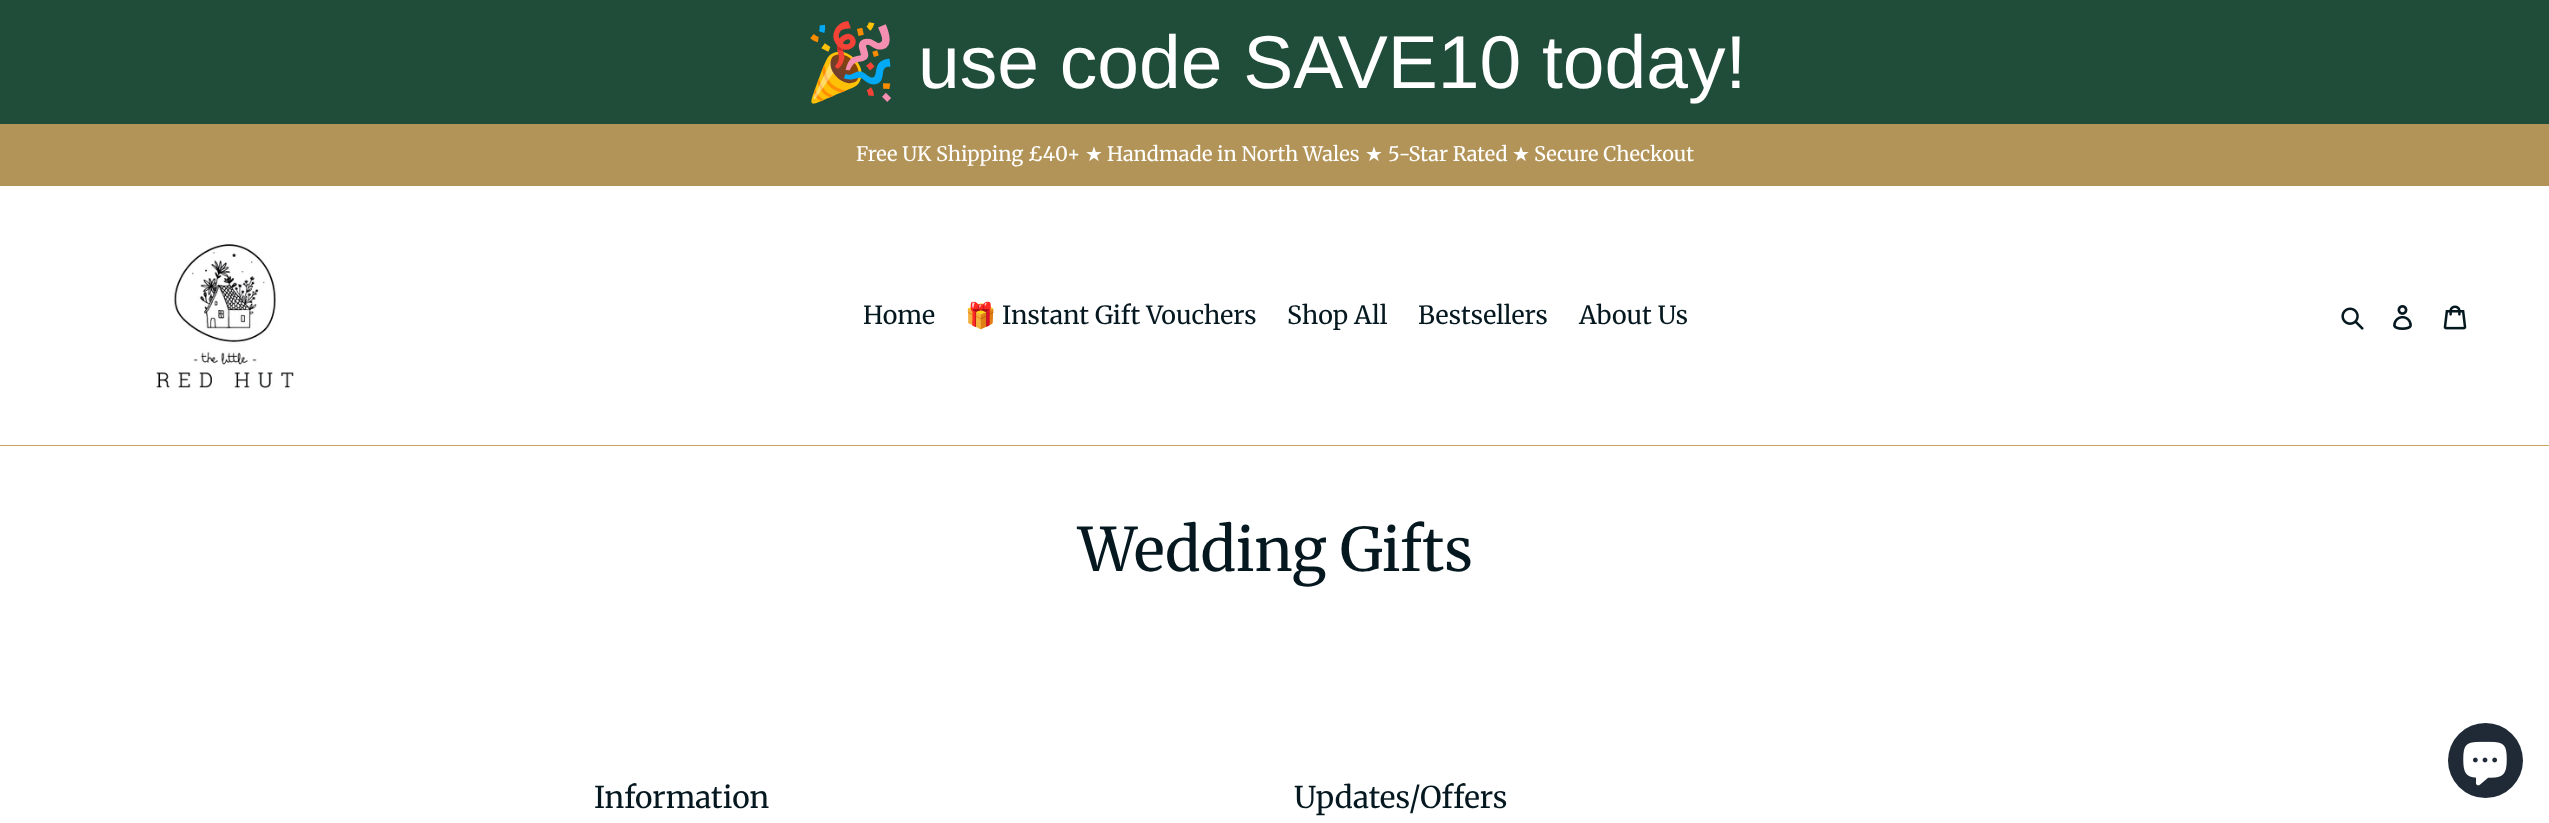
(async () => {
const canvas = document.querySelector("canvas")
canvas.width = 2549
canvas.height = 823
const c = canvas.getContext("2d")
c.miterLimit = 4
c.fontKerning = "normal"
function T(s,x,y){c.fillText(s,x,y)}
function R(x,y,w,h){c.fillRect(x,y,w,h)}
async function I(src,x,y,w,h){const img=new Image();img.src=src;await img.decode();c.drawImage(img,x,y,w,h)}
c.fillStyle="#fff"
R(0,0,2549,823)
c.fillStyle="#1f4d3a"
R(0,0,2549,124)
c.font="75px Noto Color Emoji"
c.fillStyle="#fff"
T("🎉",804,88)
c.font="75px Liberation Sans"
T("use code SAVE10 today!",918,88)
c.fillStyle="#b39458"
R(0,124,2549,62)
c.font="20px 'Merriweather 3'"
c.fillStyle="#fff"
T("Free UK Shipping £40+",856,161)
c.font="20px DejaVu Sans"
T("★",1085,161)
c.font="20px 'Merriweather 3'"
T("Handmade in North Wales",1107,161)
c.font="20px DejaVu Sans"
T("★",1365,161)
c.font="20px 'Merriweather 3'"
T("5-Star Rated",1388,161)
c.font="20px DejaVu Sans"
T("★",1512,161)
c.font="20px 'Merriweather 3'"
T("Secure Checkout",1534,161)
c.fillStyle="#caa761"
R(0,445,2549,1)
await I("1.png",156,243,138,146)
c.font="25px 'Merriweather 3'"
c.fillStyle="#051820"
T("Home",863,324)
c.font="25px Noto Color Emoji"
T("🎁",965,324)
c.font="25px 'Merriweather 3'"
T("Instant Gift Vouchers",1002,324)
T("Shop All",1287,324)
T("Bestsellers",1418,324)
T("About Us",1579,324)
await I("2.png",2341,307,23,23)
await I("3.png",2393,305,19,25)
await I("4.png",2443,305,24,25)
c.font="60px 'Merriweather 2'"
T("Wedding Gifts",1078,571)
c.font="30px Merriweather"
T("Information",594,808)
T("Updates/Offers",1294,808)
c.fillStyle="#202a36"
c.beginPath()
c.arc(2485.5,760.5,37.5,0,7)
c.fill()
await I("5.png",2463,741,44,45)
})()
